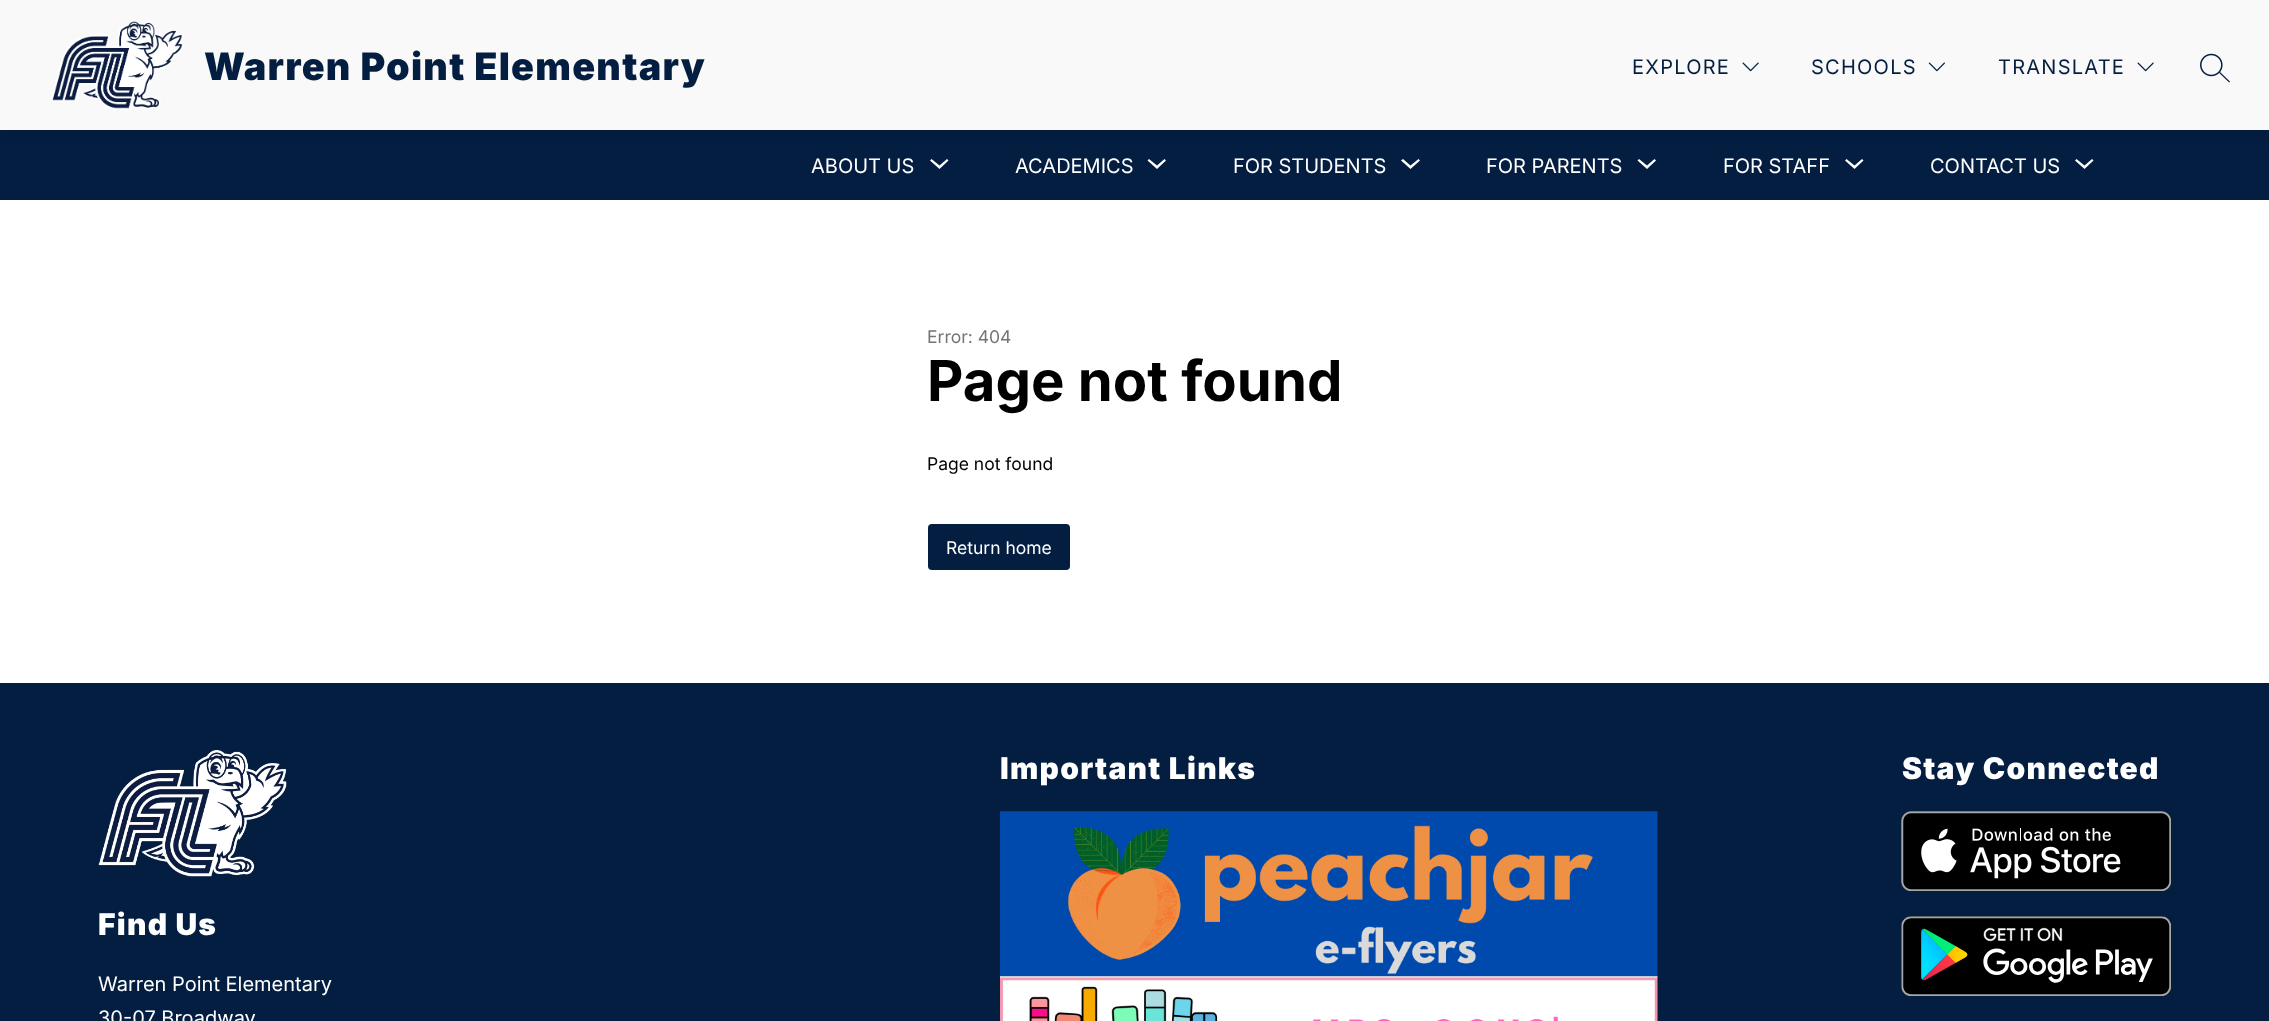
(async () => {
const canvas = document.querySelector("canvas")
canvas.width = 2269
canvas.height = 1021
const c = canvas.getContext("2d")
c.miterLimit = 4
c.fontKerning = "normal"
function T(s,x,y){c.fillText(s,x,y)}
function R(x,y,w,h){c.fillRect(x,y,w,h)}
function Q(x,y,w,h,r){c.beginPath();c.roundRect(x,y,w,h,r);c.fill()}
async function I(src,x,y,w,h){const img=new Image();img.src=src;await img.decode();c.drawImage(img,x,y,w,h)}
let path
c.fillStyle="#fff"
R(0,0,2269,1021)
c.fillStyle="#041e42"
R(0,130,2269,70)
c.fillStyle="#0000001a"
c.filter="blur(6px)"
c.beginPath()
c.rect(0,5,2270,130)
c.fill()
c.filter="none"
c.fillStyle="#f9f9f9"
R(0,0,2269,130)
await I("1.png",50,20,134,90)
c.letterSpacing="1.25px"
c.font="900 37.8px Inter"
c.fillStyle="#041e42"
T("Warren Point Elementary",204,80)
c.font="20px Inter"
T("EXPLORE",1632,74)
await I("2.png",1742,62,17,10)
T("SCHOOLS",1811,74)
await I("3.png",1928,62,17,10)
T("TRANSLATE",1998,74)
await I("2.png",2137,62,17,10)
await I("4.png",2200,53,30,30)
c.letterSpacing="0px"
c.fillStyle="#fff"
T("ABOUT US",811,173)
path = new Path2D("M947 159l-7.5 6.5l-8-6.5l-1.5 1.5l9.5 8.5l9-8.5z")
c.fill(path,"evenodd")
T("ACADEMICS",1015,173)
path = new Path2D("M1164.5 159l-7.5 6.5l-8-6.5l-1.5 1.5l9.5 8.5l9-8.5z")
c.fill(path,"evenodd")
T("FOR STUDENTS",1233,173)
path = new Path2D("M1418.5 159l-8 6.5l-7.5-6.5l-2 1.5l9.5 8.5l9.5-8.5z")
c.fill(path,"evenodd")
T("FOR PARENTS",1486,173)
path = new Path2D("M1654.5 159l-7.5 6.5l-8-6.5l-1.5 1.5l9.5 8.5l9-8.5z")
c.fill(path,"evenodd")
T("FOR STAFF",1723,173)
path = new Path2D("M1862 159l-7.5 6.5l-8-6.5l-1.5 1.5l9.5 8.5l9-8.5z")
c.fill(path,"evenodd")
T("CONTACT US",1930,173)
path = new Path2D("M2092 159l-7.5 6.5l-8-6.5l-1.5 1.5l9.5 8.5l9-8.5z")
c.fill(path,"evenodd")
c.font="17.5px Inter"
c.fillStyle="#747474"
T("Error: 404",927,343)
c.font="bold 56.25px Inter"
c.fillStyle="#000"
T("Page not found",927,401)
c.font="17.5px Inter"
T("Page not found",927,470)
c.fillStyle="#041e42"
Q(928,524,142,46,4)
c.fillStyle="#fff"
T("Return home",946,554)
c.fillStyle="#041e42"
R(0,683,2269,338)
c.letterSpacing="1.25px"
c.font="900 30px Inter"
c.fillStyle="#fff"
T("Important Links",1000,779)
await I("5.png",1000,811,658,166)
await I("6.png",1000,976,658,45)
T("Stay Connected",1902,779)
await I("7.png",1901,811,270,80)
await I("8.png",1901,916,270,80)
await I("9.png",98,750,189,127)
T("Find Us",98,935)
c.letterSpacing="0px"
c.font="20px Inter"
T("Warren Point Elementary",98,991)
T("30-07 Broadway",98,1025)
})()
